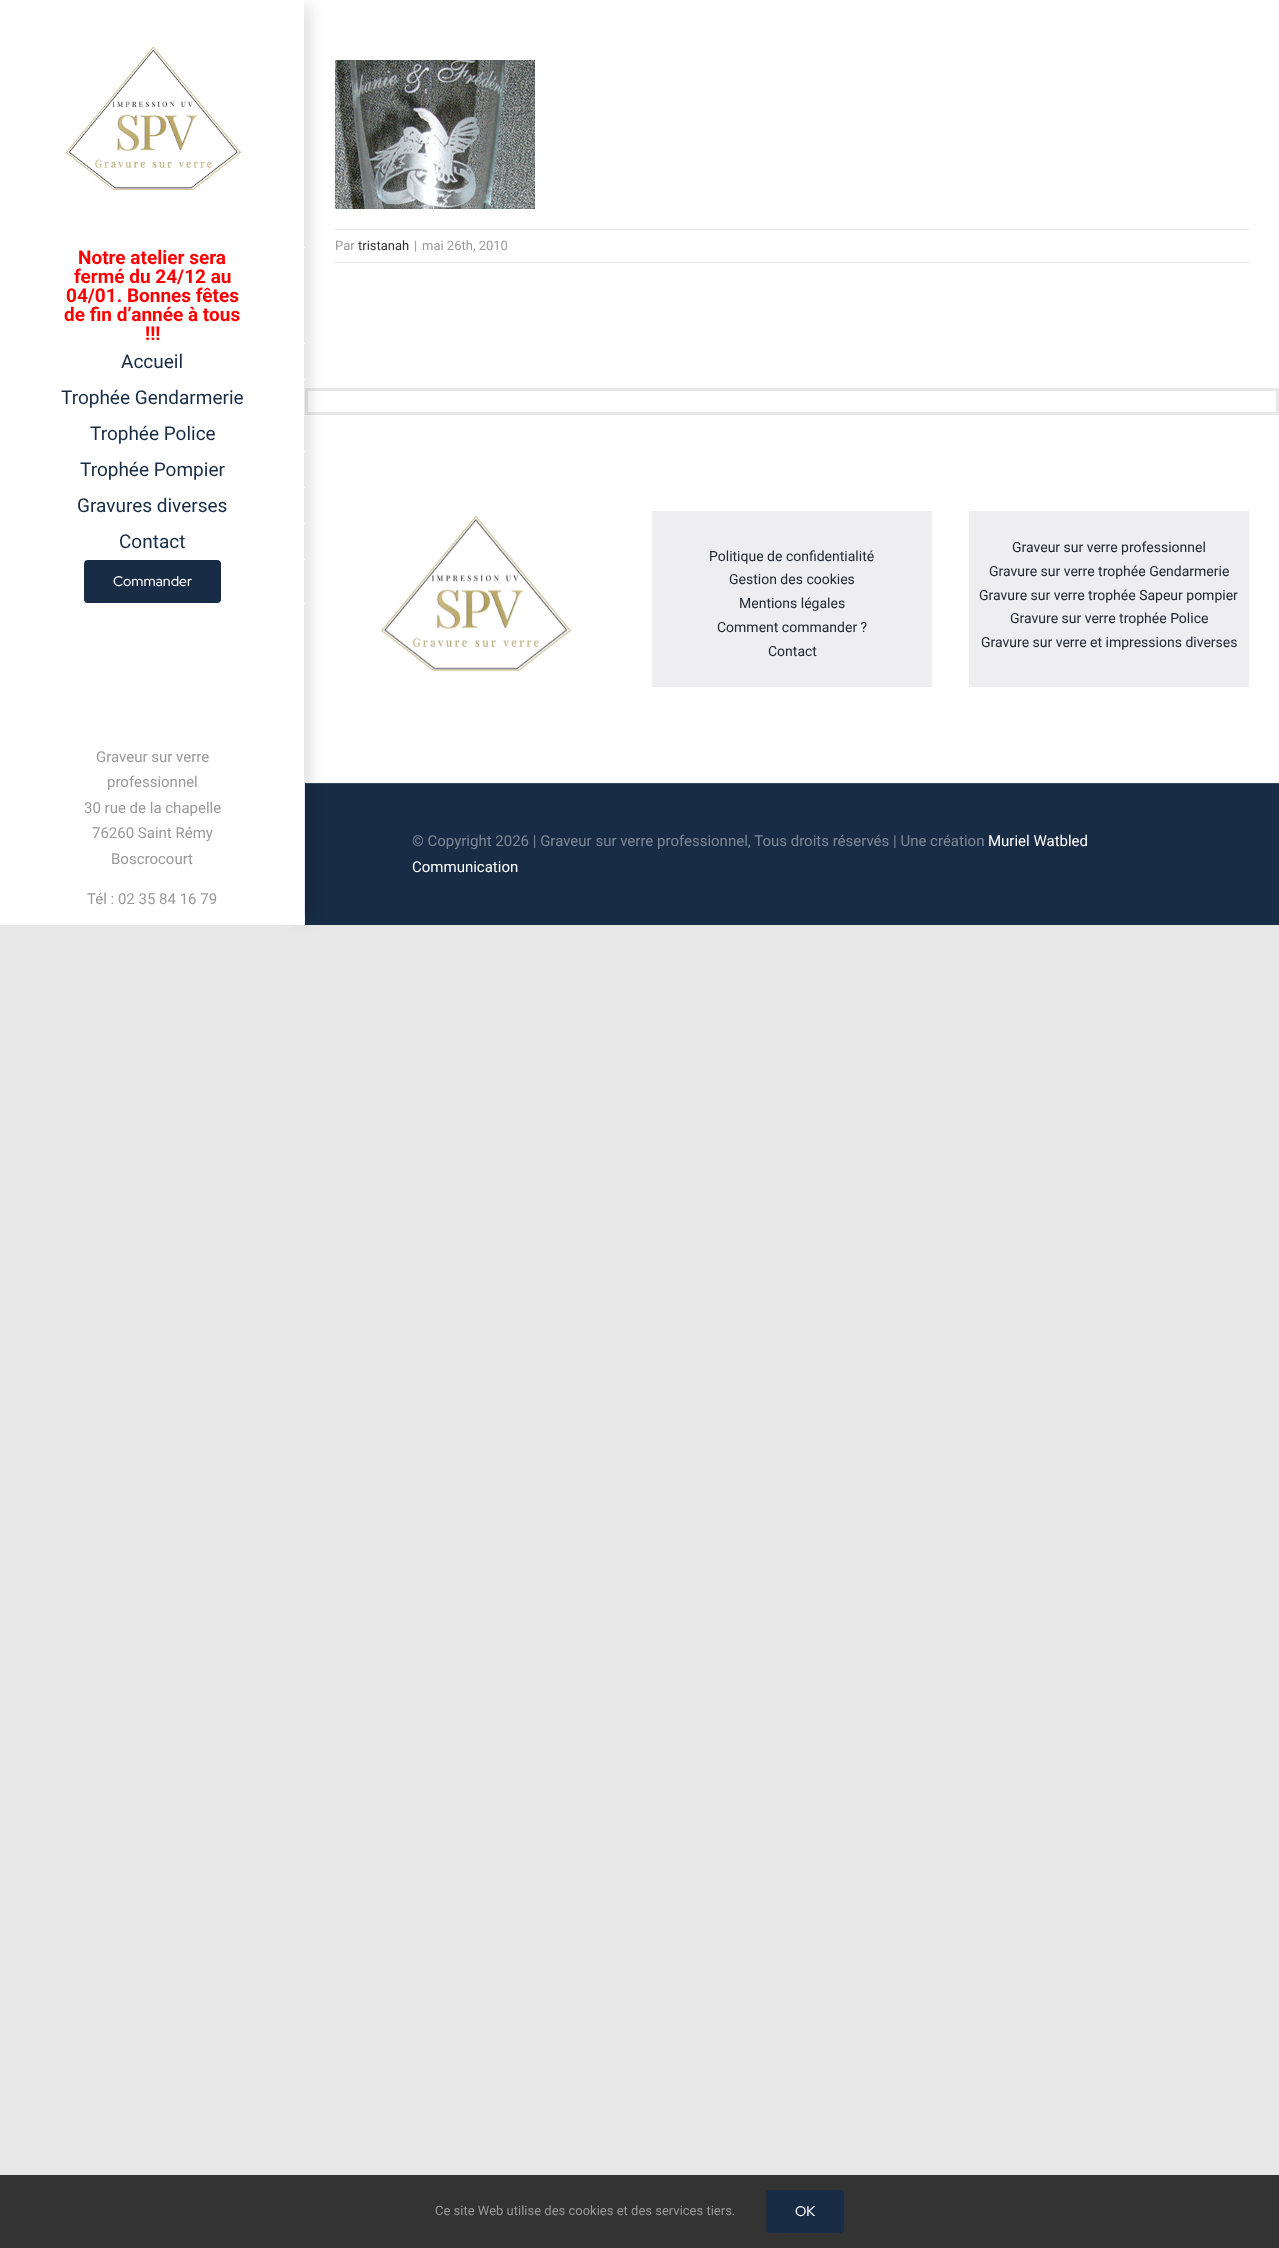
(async () => {
const canvas = document.querySelector("canvas")
canvas.width = 1279
canvas.height = 2248
const c = canvas.getContext("2d")
c.miterLimit = 4
c.fontKerning = "normal"
function T(s,x,y){c.fillText(s,x,y)}
function R(x,y,w,h){c.fillRect(x,y,w,h)}
function Q(x,y,w,h,r){c.beginPath();c.roundRect(x,y,w,h,r);c.fill()}
async function I(src,x,y,w,h){const img=new Image();img.src=src;await img.decode();c.drawImage(img,x,y,w,h)}
let path
c.fillStyle="#e8e8e8"
R(0,0,1279,2248)
c.fillStyle="#fff"
R(305,0,974,783)
await I("1.png",335,60,200,149)
c.fillStyle="#e8e8e8"
R(335,229,914,1)
R(335,262,914,1)
c.font="13px Roboto"
c.fillStyle="#999"
T("Par",335,250)
c.fillStyle="#333"
T("tristanah",358,250)
c.fillStyle="#999"
T("|",414,250)
T("mai 26th, 2010",422,250)
c.fillStyle="#fff"
R(0,0,305,925)
c.strokeStyle="#e8e8e8"
c.lineWidth=3
c.strokeRect(306.5,389.5,971,24)
c.fillStyle="#182c45"
R(305,784,974,141)
c.fillStyle="#37485d"
R(305,783,974,1)
c.save()
path = new Path2D("M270 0h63v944h-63zm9 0h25v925h-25z")
c.clip(path,"evenodd")
c.fillStyle="#00000024"
c.filter="blur(7.5px)"
c.beginPath()
c.rect(294,5,15,915)
c.fill()
c.filter="none"
c.restore()
await I("2.png",65,46,177,144)
c.fillStyle="#fff"
R(304,247,1,1)
R(304,343,1,1)
c.font="bold 19px Roboto"
c.fillStyle="#f00"
T("Notre atelier sera",78,264)
T("fermé du 24/12 au",74,283)
T("04/01. Bonnes fêtes",66,302)
T("de fin d’année à tous",64,321)
T("!!!",145,340)
c.fillStyle="#fff"
R(304,379,1,1)
c.font="19px Roboto"
c.fillStyle="#182c45"
T("Accueil",121,368)
c.fillStyle="#fff"
R(304,415,1,1)
c.fillStyle="#182c45"
T("Trophée Gendarmerie",61,404)
c.fillStyle="#fff"
R(304,451,1,1)
c.fillStyle="#182c45"
T("Trophée Police",90,440)
c.fillStyle="#fff"
R(304,487,1,1)
c.fillStyle="#182c45"
T("Trophée Pompier",80,476)
c.fillStyle="#fff"
R(304,523,1,1)
c.fillStyle="#182c45"
T("Gravures diverses",77,512)
c.fillStyle="#fff"
R(304,559,1,1)
c.fillStyle="#182c45"
T("Contact",119,548)
c.fillStyle="#fff"
R(304,603,1,1)
c.fillStyle="#182c45"
Q(84,560,137,43,4)
c.font="500 14px Red Hat Display"
c.fillStyle="#fff"
T("Commander",113,586)
c.font="15px Roboto"
c.fillStyle="#999"
T("Graveur sur verre",96,762)
T("professionnel",107,787)
T("30 rue de la chapelle",84,813)
T("76260 Saint Rémy",92,838)
T("Boscrocourt",111,864)
T("Tél : 02 35 84 16 79",87,904)
await I("3.png",381,515,191,157)
c.fillStyle="#eeedef"
R(652,511,280,176)
c.font="14px Roboto"
c.fillStyle="#212934"
T("Politique de confidentialité",709,561)
T("Gestion des cookies",729,584)
T("Mentions légales",739,608)
T("Comment commander ?",717,632)
T("Contact",768,656)
c.fillStyle="#eeedef"
R(969,511,280,176)
c.fillStyle="#212934"
T("Graveur sur verre professionnel",1012,552)
T("Gravure sur verre trophée Gendarmerie",989,576)
T("Gravure sur verre trophée Sapeur pompier",979,600)
T("Gravure sur verre trophée Police",1010,623)
T("Gravure sur verre et impressions diverses",981,647)
c.font="15px Roboto"
c.fillStyle="#7e8997"
T("© Copyright 2026 | Graveur sur verre professionnel, Tous droits réservés | Une création",412,846)
c.fillStyle="#fff"
T("Muriel Watbled",988,846)
T("Communication",412,872)
c.fillStyle="#333"
R(0,2175,1279,73)
c.font="13px Roboto"
c.fillStyle="#999"
T("Ce site Web utilise des cookies et des services tiers.",435,2215)
c.fillStyle="#182c45"
Q(766,2190,78,43,4)
c.font="500 14px Red Hat Display"
c.fillStyle="#fff"
T("OK",795,2216)
})()
